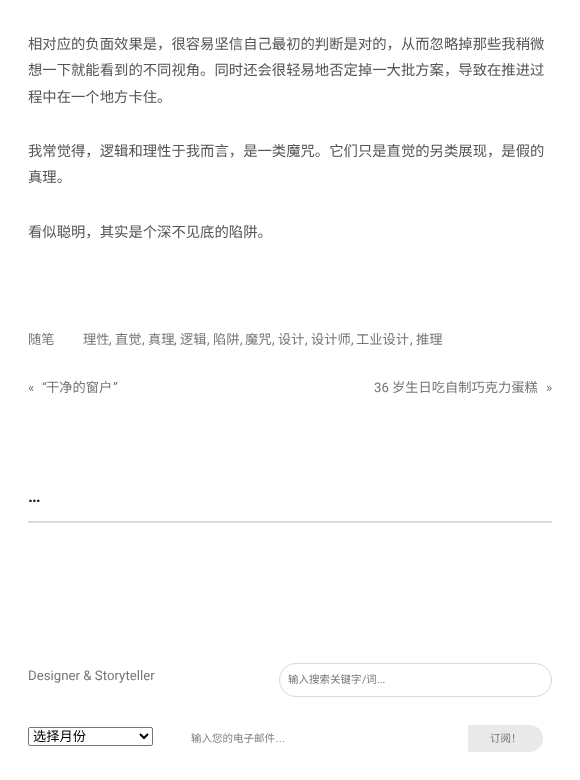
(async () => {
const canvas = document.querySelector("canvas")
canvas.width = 580
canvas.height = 780
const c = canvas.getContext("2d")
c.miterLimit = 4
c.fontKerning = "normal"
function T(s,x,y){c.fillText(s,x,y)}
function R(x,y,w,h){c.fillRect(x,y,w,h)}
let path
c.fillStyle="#fff"
R(0,0,580,780)
c.font="14.35px Noto Sans CJK SC"
c.fillStyle="#555451"
T("相对应的负面效果是，很容易坚信自己最初的判断是对的，从而忽略掉那些我稍微",28,49)
T("想一下就能看到的不同视角。同时还会很轻易地否定掉一大批方案，导致在推进过",28,75)
T("程中在一个地方卡住。",28,102)
T("我常觉得，逻辑和理性于我而言，是一类魔咒。它们只是直觉的另类展现，是假的",28,156)
T("真理。",28,182)
T("看似聪明，其实是个深不见底的陷阱。",28,237)
c.font="13.25px Noto Sans CJK SC"
c.fillStyle="#787670"
T("随笔",28,344)
T("理性",83,344)
c.font="13.25px Roboto"
T(",",109,344)
c.font="13.25px Noto Sans CJK SC"
T("直觉",115,344)
c.font="13.25px Roboto"
T(",",142,344)
c.font="13.25px Noto Sans CJK SC"
T("真理",148,344)
c.font="13.25px Roboto"
T(",",174,344)
c.font="13.25px Noto Sans CJK SC"
T("逻辑",180,344)
c.font="13.25px Roboto"
T(",",207,344)
c.font="13.25px Noto Sans CJK SC"
T("陷阱",213,344)
c.font="13.25px Roboto"
T(",",240,344)
c.font="13.25px Noto Sans CJK SC"
T("魔咒",245,344)
c.font="13.25px Roboto"
T(",",272,344)
c.font="13.25px Noto Sans CJK SC"
T("设计",278,344)
c.font="13.25px Roboto"
T(",",305,344)
c.font="13.25px Noto Sans CJK SC"
T("设计师",311,344)
c.font="13.25px Roboto"
T(",",351,344)
c.font="13.25px Noto Sans CJK SC"
T("工业设计",356,344)
c.font="13.25px Roboto"
T(",",410,344)
c.font="13.25px Noto Sans CJK SC"
T("推理",416,344)
c.font="13.25px Roboto"
T("“",42,392)
c.font="13.25px Noto Sans CJK SC"
T("干净的窗户",46,392)
c.font="13.25px Roboto"
T("”",113,392)
T("«",28,392)
T("36",374,392)
c.font="13.25px Noto Sans CJK SC"
T("岁生日吃自制巧克力蛋糕",392,392)
c.font="13.25px Roboto"
T("»",546,392)
c.font="bold 17px Roboto"
c.fillStyle="#1f1f1d"
T("…",28,502)
c.fillStyle="#dcdcde"
R(28,521,524,2)
c.font="13.25px Roboto"
c.fillStyle="#787670"
T("Designer & Storyteller",28,680)
c.beginPath()
c.roundRect(279.5,663.5,272,33,16.5)
c.strokeStyle="#d9d9d6"
c.stroke()
c.font="10.5px Noto Sans CJK SC"
T("输入搜索关键字",288,683)
c.font="10.5px Roboto"
T("/",362,683)
c.font="10.5px Noto Sans CJK SC"
T("词",366,683)
c.font="10.5px Roboto"
T("...",377,683)
c.beginPath()
c.roundRect(28.5,727.5,124,18,1.5)
c.strokeStyle="#767676"
c.stroke()
path = new Path2D("M140 734l4 4l4-4")
c.strokeStyle="#000"
c.lineWidth=2
c.stroke(path)
c.font="13.25px Noto Sans CJK SC"
c.fillStyle="#000"
T("选择月份",33,741)
c.font="10.5px Noto Sans CJK SC"
c.fillStyle="#808080"
T("输入您的电子邮件",191,742)
c.font="10.5px Liberation Sans"
T("…",275,742)
c.fillStyle="#e9e9e9"
c.beginPath()
c.roundRect(468,725,75,27,[0,13.5,13.5,0])
c.fill()
c.font="10.5px Noto Sans CJK SC"
c.fillStyle="#787670"
T("订阅！",490,742)
})()
